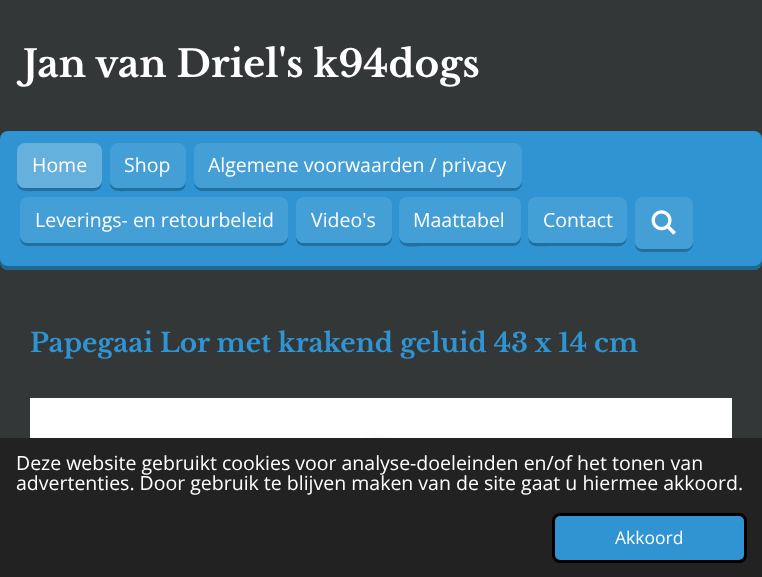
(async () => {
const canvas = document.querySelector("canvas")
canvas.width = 762
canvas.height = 577
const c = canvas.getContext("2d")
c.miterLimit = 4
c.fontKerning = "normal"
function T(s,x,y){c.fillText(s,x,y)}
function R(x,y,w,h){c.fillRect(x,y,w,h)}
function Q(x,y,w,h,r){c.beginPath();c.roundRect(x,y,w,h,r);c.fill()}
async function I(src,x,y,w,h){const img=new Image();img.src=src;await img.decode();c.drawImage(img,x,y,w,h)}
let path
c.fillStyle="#343738"
R(0,0,762,577)
c.font="bold 37.5px Libre Baskerville"
c.fillStyle="#fff"
T("Jan van Driel's k94dogs",23,77)
c.fillStyle="#2f94d1"
Q(0,131,762,139,8)
c.fillStyle="#0000004d"
path = new Path2D("M0 258v4c0 4 4 8 8 8h746c4 0 8-4 8-8v-4c0 4-3 8-8 8h-746c-5 0-8-4-8-8z")
c.fill(path)
c.fillStyle="#236f9d"
path = new Path2D("M17 183c0 10 13 8 19 8h46c12 0 20 2 20-11c0 4-3 8-8 8h-70c-3 0-6-2-7-5z")
c.fill(path)
c.fillStyle="#65b0dd"
Q(17,143,85,45,8)
c.font="19.5px Open Sans"
c.fillStyle="#fff"
T("Home",32,172)
c.fillStyle="#236f9d"
path = new Path2D("M110 183c0 10 11 8 18 8h40c11 0 18 2 18-11c0 4-3 8-8 8h-61c-3 0-6-2-7-5z")
c.fill(path)
c.fillStyle="#449fd6"
Q(110,143,76,45,8)
c.fillStyle="#fff"
T("Shop",124,172)
c.fillStyle="#236f9d"
path = new Path2D("M194 183c0 4 4 8 8 8h312c4 0 8-4 8-8v-3c0 4-3 8-8 8h-313c-3 0-6-2-7-5z")
c.fill(path)
c.fillStyle="#449fd6"
Q(194,143,328,45,8)
c.fillStyle="#fff"
T("Algemene voorwaarden / privacy",208,172)
c.fillStyle="#236f9d"
path = new Path2D("M20 238c0 5 4 8 8 8h252c4 0 8-4 8-8v-2c0 4-3 7-8 7h-253c-3 0-6-2-7-5z")
c.fill(path)
c.fillStyle="#449fd6"
Q(20,197,268,46,8)
c.fillStyle="#fff"
T("Leverings- en retourbeleid",35,227)
c.fillStyle="#236f9d"
path = new Path2D("M296 238c0 5 4 8 8 8h80c4 0 8-4 8-8v-30v-3l-1 32l-2 4l-3 2h-85c-2-1-4-3-5-5z")
c.fill(path)
c.fillStyle="#449fd6"
Q(296,197,96,46,8)
c.fillStyle="#fff"
T("Video's",311,227)
c.fillStyle="#236f9d"
path = new Path2D("M399 236c0 14 14 10 26 10h88c10 0 8-12 8-18l-1-23v31c0 4-3 7-7 7h-107c-4 0-7-3-7-7z")
c.fill(path)
c.fillStyle="#449fd6"
Q(399,197,122,46,8)
c.fillStyle="#fff"
T("Maattabel",413,227)
c.fillStyle="#236f9d"
path = new Path2D("M528 236c0 13 11 10 22 10h55c11 0 22 3 22-10c0 4-3 7-7 7h-84c-5 0-8-3-8-7z")
c.fill(path)
c.fillStyle="#449fd6"
Q(528,197,99,46,8)
c.fillStyle="#fff"
T("Contact",543,227)
c.fillStyle="#236f9d"
path = new Path2D("M635 244c0 5 4 8 8 8h42c4 0 8-4 8-8v-2c0 4-3 7-7 7h-44c-3 0-6-2-7-5z")
c.fill(path)
c.fillStyle="#449fd6"
Q(635,197,58,52,8)
await I("1.png",651,210,25,25)
c.font="bold 26.25px Libre Baskerville"
c.fillStyle="#2f94d1"
T("Papegaai Lor met krakend geluid 43 x 14 cm",30,352)
await I("2.png",30,398,702,40)
c.fillStyle="#222"
R(0,438,762,139)
c.font="19.5px Open Sans"
c.fillStyle="#fff"
T("Deze website gebruikt cookies voor analyse-doeleinden en/of het tonen van",16,470)
T("advertenties. Door gebruik te blijven maken van de site gaat u hiermee akkoord.",16,490)
c.fillStyle="#2f94d1"
c.beginPath()
c.roundRect(553.5,514.5,192,47,6.5)
c.fill()
c.strokeStyle="#000"
c.lineWidth=3
c.stroke()
c.font="17.5px Open Sans"
c.fillStyle="#fff"
T("Akkoord",615,544)
})()
